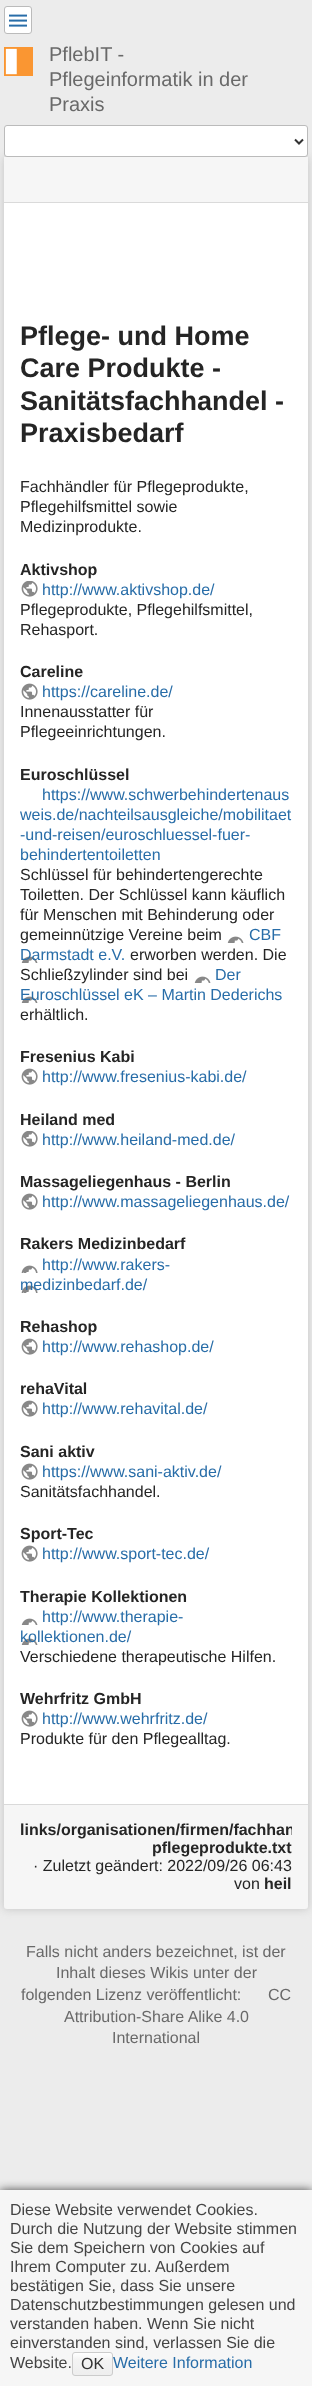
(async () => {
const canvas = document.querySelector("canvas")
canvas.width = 312
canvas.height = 2386
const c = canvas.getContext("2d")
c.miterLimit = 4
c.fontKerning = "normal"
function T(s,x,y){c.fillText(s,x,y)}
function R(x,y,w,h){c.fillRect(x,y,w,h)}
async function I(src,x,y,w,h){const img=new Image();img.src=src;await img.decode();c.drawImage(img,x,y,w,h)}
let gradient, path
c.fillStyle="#ececec"
R(0,0,312,2386)
c.fillStyle="#fff"
c.beginPath()
c.roundRect(4.5,6.5,27,27,2.5)
c.fill()
c.strokeStyle="#bbb"
c.stroke()
await I("1.png",9,14,18,13)
await I("2.png",4,47,29,29)
c.font="20px Liberation Sans"
c.fillStyle="#696969"
T("PflebIT -",49,61)
T("Pflegeinformatik in der",49,86)
T("Praxis",49,111)
c.fillStyle="#99999980"
c.filter="blur(4px)"
c.beginPath()
c.rect(4,157,304,1752)
c.fill()
c.filter="none"
c.fillStyle="#fff"
c.beginPath()
c.roundRect(4.5,125.5,303,31,2.5)
c.fill()
c.stroke()
path = new Path2D("M295 139.5l4 4l4-4")
c.strokeStyle="#333"
c.lineWidth=2
c.stroke(path)
c.fillStyle="#f6f6f6"
R(4,157,304,45)
c.fillStyle="#dadada"
R(4,202,304,1)
c.fillStyle="#fff"
R(4,203,304,1601)
c.font="bold 27px Liberation Sans"
c.fillStyle="#252525"
T("Pflege- und Home",20,345)
T("Care Produkte -",20,377)
T("Sanitätsfachhandel -",20,410)
T("Praxisbedarf",20,442)
c.font="16px Liberation Sans"
T("Fachhändler für Pflegeprodukte,",20,492)
T("Pflegehilfsmittel sowie",20,512)
T("Medizinprodukte.",20,532)
c.font="bold 16px Liberation Sans"
T("Aktivshop",20,575)
await I("3.png",21,581,17,16)
c.font="16px Liberation Sans"
c.fillStyle="#286da8"
T("http://www.aktivshop.de/",42,595)
c.fillStyle="#252525"
T("Pflegeprodukte, Pflegehilfsmittel,",20,615)
T("Rehasport.",20,635)
c.font="bold 16px Liberation Sans"
T("Careline",20,677)
await I("4.png",21,683,17,17)
c.font="16px Liberation Sans"
c.fillStyle="#286da8"
T("https://careline.de/",42,697)
c.fillStyle="#252525"
T("Innenausstatter für",20,717)
T("Pflegeeinrichtungen.",20,737)
c.font="bold 16px Liberation Sans"
T("Euroschlüssel",20,780)
c.font="16px Liberation Sans"
c.fillStyle="#286da8"
T("https://www.schwerbehindertenaus",42,800)
T("weis.de/nachteilsausgleiche/mobilitaet",20,820)
T("-und-reisen/euroschluessel-fuer-",20,840)
T("behindertentoiletten",20,860)
c.fillStyle="#252525"
T("Schlüssel für behindertengerechte",20,880)
T("Toiletten. Der Schlüssel kann käuflich",20,900)
T("für Menschen mit Behinderung oder",20,920)
T("gemeinnützige Vereine beim",20,940)
c.fillStyle="#286da8"
T("CBF",249,940)
await I("5.png",21,936,223,27)
T("Darmstadt e.V.",20,960)
c.fillStyle="#252525"
T("erworben werden. Die",130,960)
T("Schließzylinder sind bei",20,980)
c.fillStyle="#286da8"
T("Der",215,980)
await I("6.png",21,976,190,27)
T("Euroschlüssel eK – Martin Dederichs",20,1000)
c.fillStyle="#252525"
T("erhältlich.",20,1020)
c.font="bold 16px Liberation Sans"
T("Fresenius Kabi",20,1062)
await I("4.png",21,1068,17,17)
c.font="16px Liberation Sans"
c.fillStyle="#286da8"
T("http://www.fresenius-kabi.de/",42,1082)
c.font="bold 16px Liberation Sans"
c.fillStyle="#252525"
T("Heiland med",20,1125)
await I("3.png",21,1131,17,16)
c.font="16px Liberation Sans"
c.fillStyle="#286da8"
T("http://www.heiland-med.de/",42,1145)
c.font="bold 16px Liberation Sans"
c.fillStyle="#252525"
T("Massageliegenhaus - Berlin",20,1187)
await I("4.png",21,1193,17,17)
c.font="16px Liberation Sans"
c.fillStyle="#286da8"
T("http://www.massageliegenhaus.de/",42,1207)
c.font="bold 16px Liberation Sans"
c.fillStyle="#252525"
T("Rakers Medizinbedarf",20,1249)
await I("7.png",21,1265,17,28)
c.font="16px Liberation Sans"
c.fillStyle="#286da8"
T("http://www.rakers-",42,1270)
T("medizinbedarf.de/",20,1290)
c.font="bold 16px Liberation Sans"
c.fillStyle="#252525"
T("Rehashop",20,1332)
await I("4.png",21,1338,17,17)
c.font="16px Liberation Sans"
c.fillStyle="#286da8"
T("http://www.rehashop.de/",42,1352)
c.font="bold 16px Liberation Sans"
c.fillStyle="#252525"
T("rehaVital",20,1394)
await I("4.png",21,1400,17,17)
c.font="16px Liberation Sans"
c.fillStyle="#286da8"
T("http://www.rehavital.de/",42,1414)
c.font="bold 16px Liberation Sans"
c.fillStyle="#252525"
T("Sani aktiv",20,1457)
await I("4.png",21,1463,17,17)
c.font="16px Liberation Sans"
c.fillStyle="#286da8"
T("https://www.sani-aktiv.de/",42,1477)
c.fillStyle="#252525"
T("Sanitätsfachhandel.",20,1497)
c.font="bold 16px Liberation Sans"
T("Sport-Tec",20,1539)
await I("4.png",21,1545,17,17)
c.font="16px Liberation Sans"
c.fillStyle="#286da8"
T("http://www.sport-tec.de/",42,1559)
c.font="bold 16px Liberation Sans"
c.fillStyle="#252525"
T("Therapie Kollektionen",20,1602)
await I("8.png",21,1618,17,27)
c.font="16px Liberation Sans"
c.fillStyle="#286da8"
T("http://www.therapie-",42,1622)
T("kollektionen.de/",20,1642)
c.fillStyle="#252525"
T("Verschiedene therapeutische Hilfen.",20,1662)
c.font="bold 16px Liberation Sans"
T("Wehrfritz GmbH",20,1704)
await I("4.png",21,1710,17,17)
c.font="16px Liberation Sans"
c.fillStyle="#286da8"
T("http://www.wehrfritz.de/",42,1724)
c.fillStyle="#252525"
T("Produkte für den Pflegealltag.",20,1744)
c.fillStyle="#454545"
c.filter="blur(5px)"
c.beginPath()
c.rect(0,2190,312,196)
c.fill()
c.filter="none"
c.fillStyle="#f6f6f6"
R(0,2190,312,196)
c.fillStyle="#454545"
T("Diese Website verwendet Cookies.",10,2215)
T("Durch die Nutzung der Website stimmen",10,2234)
T("Sie dem Speichern von Cookies auf",10,2253)
T("Ihrem Computer zu. Außerdem",10,2272)
T("bestätigen Sie, dass Sie unsere",10,2291)
T("Datenschutzbestimmungen gelesen und",10,2310)
T("verstanden haben. Wenn Sie nicht",10,2329)
T("einverstanden sind, verlassen Sie die",10,2348)
T("Website.",10,2368)
c.save()
c.beginPath()
c.roundRect(72,2352,41,24,3)
c.clip()
gradient = c.createLinearGradient(93,2353,93,2375)
gradient.addColorStop(0,"#fff")
gradient.addColorStop(.3,"#f4f4f4")
gradient.addColorStop(.99,"#eee")
gradient.addColorStop(.99,"#ccc")
c.fillStyle = gradient
R(72,2353,41,22)
c.restore()
c.beginPath()
c.roundRect(72.5,2352.5,40,23,2.5)
c.strokeStyle="#ccc"
c.lineWidth=1
c.stroke()
c.fillStyle="#333"
T("OK",81,2369)
c.fillStyle="#286da8"
T("Weitere Information",113,2368)
c.fillStyle="#f6f6f6"
c.beginPath()
c.roundRect(4,1804,304,105,[0,0,3,3])
c.fill()
c.fillStyle="#dadada"
R(4,1804,304,1)
c.save()
c.beginPath()
c.rect(20,1821,272,36)
c.clip()
c.font="bold 16px Liberation Sans"
c.fillStyle="#252525"
T("links/organisationen/firmen/fachhan",20,1835)
c.restore()
c.font="bold 16px Liberation Sans"
c.fillStyle="#252525"
T("pflegeprodukte.txt",152,1853)
c.font="16px Liberation Sans"
T("· Zuletzt geändert: 2022/09/26 06:43",33,1871)
T("von",234,1889)
c.font="bold 16px Liberation Sans"
T("heil",264,1889)
c.font="16px Liberation Sans"
c.fillStyle="#696969"
T("Falls nicht anders bezeichnet, ist der",26,1957)
T("Inhalt dieses Wikis unter der",56,1978)
T("folgenden Lizenz veröffentlicht:",21,2000)
T("CC",268,2000)
T("Attribution-Share Alike 4.0",64,2022)
T("International",112,2043)
})()
